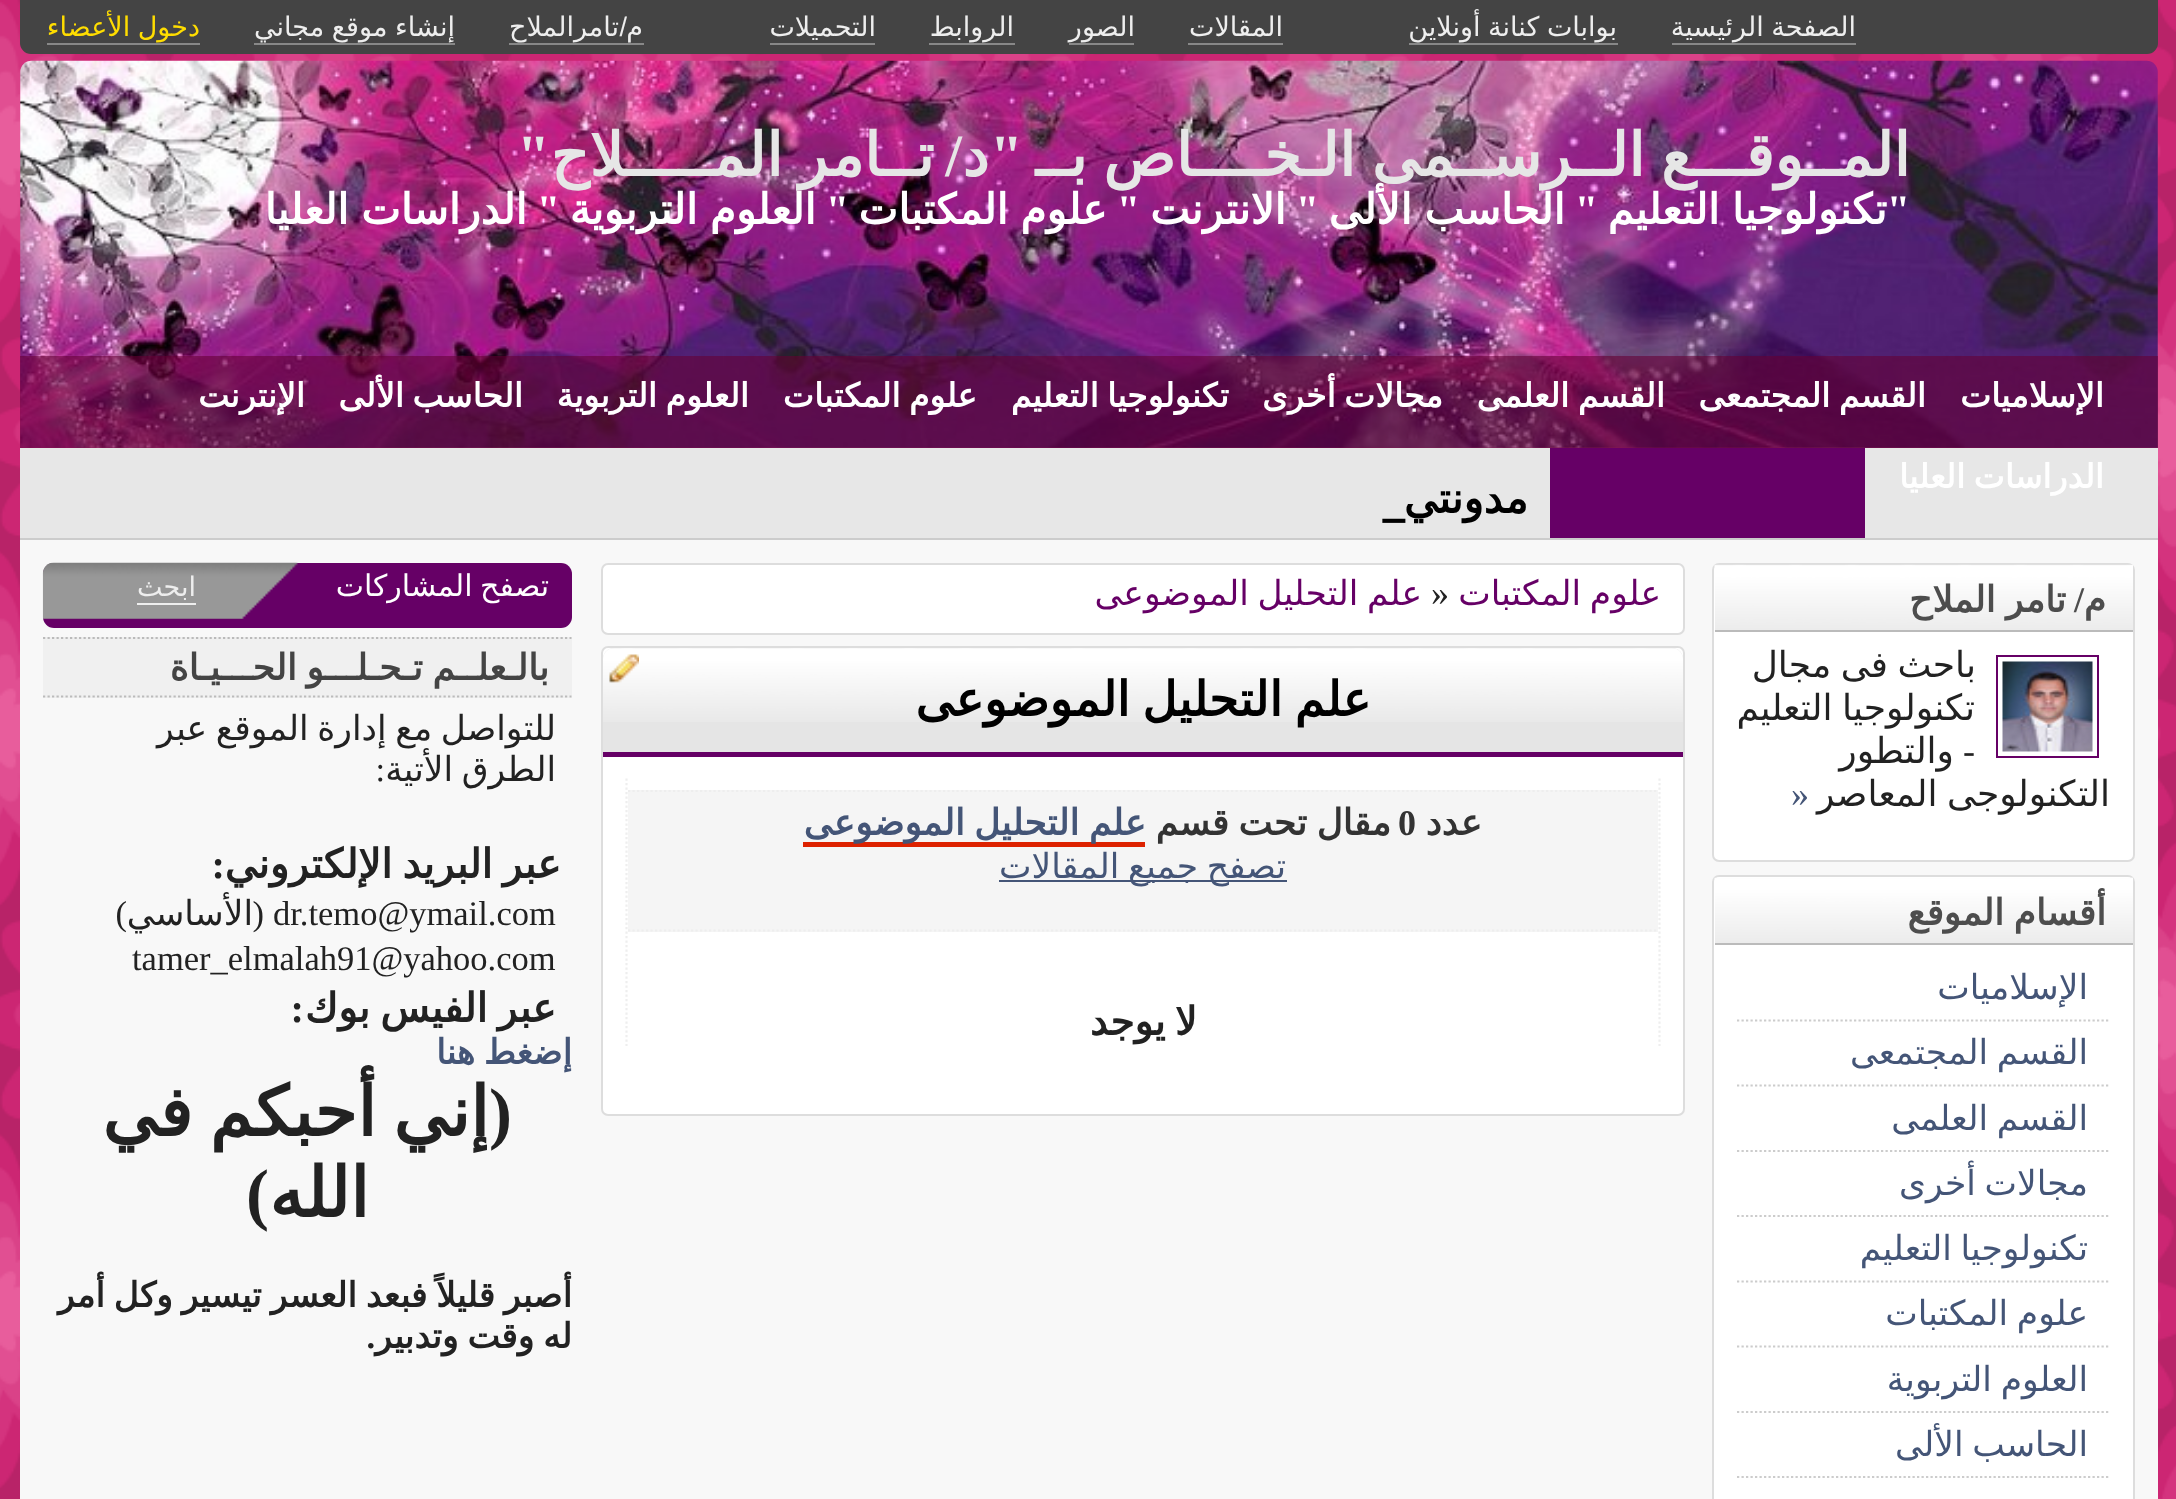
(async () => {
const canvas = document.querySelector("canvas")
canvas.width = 2176
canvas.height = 1499
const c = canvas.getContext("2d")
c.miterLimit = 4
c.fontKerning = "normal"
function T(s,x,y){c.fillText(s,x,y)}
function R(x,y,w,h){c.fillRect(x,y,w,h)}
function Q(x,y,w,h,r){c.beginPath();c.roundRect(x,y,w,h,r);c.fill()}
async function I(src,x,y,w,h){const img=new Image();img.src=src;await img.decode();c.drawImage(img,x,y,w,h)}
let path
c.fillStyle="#fff"
R(0,0,2176,1499)
await I("1.png",0,0,2176,1499)
c.fillStyle="#444"
c.beginPath()
c.roundRect(20,0,2138,54,[0,0,11,11])
c.fill()
c.wordSpacing="-1px"
c.direction="rtl"
c.font="27px DejaVu Sans"
c.fillStyle="#eee"
T("الصفحة الرئيسية",1856,36)
c.fillStyle="#888"
R(1672,43,184,2)
c.fillStyle="#eee"
T("بوابات كنانة أونلاين",1617,36)
c.fillStyle="#888"
R(1409,43,209,2)
c.wordSpacing="0px"
c.fillStyle="#eee"
T("المقالات",1283,36)
c.fillStyle="#888"
R(1188,43,95,2)
c.fillStyle="#eee"
T("الصور",1135,36)
c.fillStyle="#888"
R(1069,43,65,2)
c.fillStyle="#eee"
T("الروابط",1014,36)
c.fillStyle="#888"
R(929,43,86,2)
c.fillStyle="#eee"
T("التحميلات",876,36)
c.fillStyle="#888"
R(770,43,105,2)
c.fillStyle="#eee"
T("م",643,36)
c.fillStyle="#888"
R(509,43,135,2)
c.font="27px Liberation Sans"
c.fillStyle="#eee"
T("/",627,36)
c.font="27px DejaVu Sans"
T("تامرالملاح",619,36)
c.wordSpacing="-1px"
T("إنشاء موقع مجاني",455,36)
c.fillStyle="#888"
R(254,43,201,2)
c.fillStyle="#fd0"
T("دخول الأعضاء",200,36)
c.fillStyle="#888"
R(47,43,153,2)
await I("2.png",20,60,2138,388)
c.wordSpacing="-3px"
c.font="bold 60px DejaVu Sans"
c.fillStyle="#e6e6e6"
T("المــوقـــع الــرســمى الـخــــاص بــ",1910,176)
c.wordSpacing="0px"
c.font="bold 60px Liberation Serif"
T("\"",1023,176)
T("/",962,176)
c.wordSpacing="-3px"
c.font="bold 60px DejaVu Sans"
T("تــامر المـــــلاح",934,176)
c.wordSpacing="0px"
c.font="bold 60px Liberation Serif"
T("\"",550,176)
c.font="bold 60px DejaVu Sans"
T("د",989,176)
c.font="bold 42px Liberation Serif"
c.fillStyle="#fff"
T("\"",1910,224)
c.wordSpacing="-1px"
c.font="bold 42px DejaVu Sans"
T("تكنولوجيا التعليم",1887,224)
c.wordSpacing="0px"
c.font="bold 42px Liberation Serif"
T("\"",1598,224)
c.wordSpacing="-1px"
c.font="bold 42px DejaVu Sans"
T("الحاسب الألى",1565,224)
c.wordSpacing="0px"
c.font="bold 42px Liberation Serif"
T("\"",1319,224)
c.font="bold 42px DejaVu Sans"
T("الانترنت",1286,224)
c.font="bold 42px Liberation Serif"
T("\"",1140,224)
c.wordSpacing="-1px"
c.font="bold 42px DejaVu Sans"
T("علوم المكتبات",1107,224)
c.wordSpacing="0px"
c.font="bold 42px Liberation Serif"
T("\"",849,224)
c.wordSpacing="-1px"
c.font="bold 42px DejaVu Sans"
T("العلوم التربوية",816,224)
c.wordSpacing="0px"
c.font="bold 42px Liberation Serif"
T("\"",560,224)
c.wordSpacing="-1px"
c.font="bold 42px DejaVu Sans"
T("الدراسات العليا",527,224)
c.fillStyle="#66003394"
R(20,356,2138,92)
c.wordSpacing="0px"
c.font="bold 33px DejaVu Sans"
c.fillStyle="#fff"
T("الإسلاميات",2104,407)
c.wordSpacing="-2px"
T("القسم المجتمعى",1926,407)
T("القسم العلمى",1665,407)
T("مجالات أخرى",1443,407)
T("تكنولوجيا التعليم",1229,407)
T("علوم المكتبات",977,407)
T("العلوم التربوية",749,407)
T("الحاسب الألى",523,407)
c.wordSpacing="0px"
T("الإنترنت",305,407)
c.fillStyle="#e7e7e7"
R(20,448,2138,90)
c.wordSpacing="-2px"
c.fillStyle="#fff"
T("الدراسات العليا",2104,488)
c.fillStyle="#ccc"
R(20,538,2138,2)
c.fillStyle="#606"
R(1550,448,315,90)
c.wordSpacing="0px"
c.font="bold 42px DejaVu Sans"
c.fillStyle="#000"
T("مدونتي_",1528,513)
c.fillStyle="#f8f8f8"
R(20,540,2138,959)
c.fillStyle="#fff"
c.beginPath()
c.roundRect(1713,564,421,297,6)
c.fill()
c.strokeStyle="#ddd"
c.lineWidth=2
c.stroke()
c.fillStyle="#e5e5e5"
R(1715,565,418,65)
await I("3.png",1714,564,419,68)
c.fillStyle="#bbb"
R(1715,630,418,2)
c.font="bold 36px DejaVu Sans"
c.fillStyle="#4d4d4d"
T("م",2106,612)
c.font="bold 36px Liberation Serif"
T("/",2084,612)
c.wordSpacing="-1px"
c.font="bold 36px DejaVu Sans"
T("تامر الملاح",2066,612)
c.wordSpacing="-2px"
c.font="36px DejaVu Sans"
c.fillStyle="#222"
T("باحث فى مجال",1976,677)
T("تكنولوجيا التعليم",1975,720)
c.wordSpacing="0px"
c.font="36px Liberation Serif"
T("-",1975,763)
c.font="36px DejaVu Sans"
T("والتطور",1954,763)
c.wordSpacing="-2px"
T("التكنولوجى المعاصر",2110,806)
c.wordSpacing="0px"
c.direction="ltr"
c.font="36px Liberation Serif"
c.fillStyle="#457"
T("»",1791,806)
c.strokeStyle="#606"
c.strokeRect(1997,656,101,101)
await I("4.png",2002,661,91,91)
c.fillStyle="#fff"
c.beginPath()
c.roundRect(1713,876,421,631,6)
c.fill()
c.strokeStyle="#ddd"
c.stroke()
c.fillStyle="#e5e5e5"
R(1715,878,418,65)
await I("5.png",1714,877,419,68)
c.fillStyle="#bbb"
R(1715,943,418,2)
c.wordSpacing="-2px"
c.direction="rtl"
c.font="bold 36px DejaVu Sans"
c.fillStyle="#4d4d4d"
T("أقسام الموقع",2106,925)
path = new Path2D("M1737 1020.5h373.5")
c.strokeStyle="#ccc"
c.lineWidth=2.2
c.setLineDash([2.25,2.25])
c.stroke(path)
c.wordSpacing="0px"
c.font="34.5px DejaVu Sans"
c.fillStyle="#457"
T("الإسلاميات",2088,999)
path = new Path2D("M1737 1085.5h373.5")
c.stroke(path)
c.wordSpacing="-2.25px"
T("القسم المجتمعى",2088,1064)
path = new Path2D("M1737 1151h373.5")
c.stroke(path)
T("القسم العلمى",2088,1130)
path = new Path2D("M1737 1216h373.5")
c.stroke(path)
T("مجالات أخرى",2088,1195)
path = new Path2D("M1737 1281.5h373.5")
c.stroke(path)
T("تكنولوجيا التعليم",2088,1260)
path = new Path2D("M1737 1346.5h373.5")
c.stroke(path)
T("علوم المكتبات",2088,1325)
path = new Path2D("M1737 1412h373.5")
c.stroke(path)
T("العلوم التربوية",2088,1391)
path = new Path2D("M1737 1477h373.5")
c.stroke(path)
T("الحاسب الألى",2088,1456)
c.fillStyle="#fff"
c.beginPath()
c.roundRect(602,564,1082,70,6)
c.fill()
c.strokeStyle="#ddd"
c.lineWidth=2
c.setLineDash([])
c.stroke()
c.fillStyle="#606"
T("علوم المكتبات",1661,605)
c.wordSpacing="0px"
c.direction="ltr"
c.font="36px Liberation Serif"
c.fillStyle="#222"
T("»",1431,605)
c.wordSpacing="-2.25px"
c.direction="rtl"
c.font="34.5px DejaVu Sans"
c.fillStyle="#606"
T("علم التحليل الموضوعى",1422,605)
c.fillStyle="#fff"
c.beginPath()
c.roundRect(602,647,1082,468,6)
c.fill()
c.stroke()
c.fillStyle="#e5e5e5"
c.beginPath()
c.roundRect(603,648,1080,108,[11,11,0,0])
c.fill()
await I("6.png",603,648,1080,74)
c.fillStyle="#606"
R(603,752,1080,5)
await I("7.png",609,654,30,29)
c.wordSpacing="-3px"
c.font="bold 48px DejaVu Sans"
c.fillStyle="#000"
T("علم التحليل الموضوعى",1371,716)
path = new Path2D("M1659.5 778.5v267.5")
c.strokeStyle="#eee"
c.lineWidth=2.2
c.setLineDash([2.25,2.25])
c.stroke(path)
path = new Path2D("M626.5 778.5v267.5")
c.stroke(path)
c.fillStyle="#f5f5f5"
R(628,790,1030,142)
path = new Path2D("M628 791h1030")
c.stroke(path)
path = new Path2D("M628 930.5h1030")
c.stroke(path)
c.wordSpacing="0px"
c.font="bold 36px DejaVu Sans"
c.fillStyle="#333"
T("عدد",1482,835)
c.direction="ltr"
c.font="bold 36px Liberation Serif"
T("0",1398,835)
c.wordSpacing="-2px"
c.direction="rtl"
c.font="bold 36px DejaVu Sans"
T("مقال تحت قسم",1391,835)
c.fillStyle="#d20"
R(803,842,342,5)
c.fillStyle="#457"
T("علم التحليل الموضوعى",1146,835)
R(999,880,288,2)
c.wordSpacing="-2.25px"
c.font="34.5px DejaVu Sans"
T("تصفح جميع المقالات",1286,878)
c.wordSpacing="-3px"
c.font="bold 39px DejaVu Sans"
c.fillStyle="#222"
T("لا يوجد",1197,1035)
c.fillStyle="#606"
Q(43,563,529,65,11)
await I("8.png",42,562,256,57)
c.wordSpacing="-2px"
c.font="30px DejaVu Sans"
c.fillStyle="#fff"
T("تصفح المشاركات",549,596)
c.wordSpacing="0px"
c.font="27px DejaVu Sans"
c.fillStyle="#eee"
T("ابحث",196,596)
R(137,603,59,2)
c.fillStyle="#f0f0f0"
R(43,637,529,61)
path = new Path2D("M43 638h528.5")
c.strokeStyle="#bbb"
c.stroke(path)
path = new Path2D("M43 696.5h528.5")
c.stroke(path)
c.wordSpacing="-2px"
c.font="bold 36px DejaVu Sans"
c.fillStyle="#444"
T("بالـعلــم تـحـلـــو الحـــيـاة",549,680)
c.wordSpacing="-2.25px"
c.font="34.5px DejaVu Sans"
c.fillStyle="#222"
T("للتواصل مع إدارة الموقع عبر",556,740)
T("الطرق الأتية",556,781)
c.wordSpacing="0px"
c.font="34.5px Liberation Serif"
T(":",385,781)
c.wordSpacing="-3px"
c.font="bold 40.4px DejaVu Sans"
T("عبر البريد الإلكتروني",561,878)
c.wordSpacing="0px"
c.font="bold 40.4px Liberation Serif"
T(":",225,878)
c.direction="ltr"
c.font="34.5px Liberation Serif"
T("dr.temo@ymail.com",273,925)
c.direction="rtl"
T("(",264,925)
c.font="34.5px DejaVu Sans"
T("الأساسي",253,925)
c.font="34.5px Liberation Serif"
T(")",127,925)
c.direction="ltr"
T("tamer_elmalah91@yahoo.com",132,970)
c.wordSpacing="-3px"
c.direction="rtl"
c.font="bold 40.4px DejaVu Sans"
T("عبر الفيس بوك",556,1022)
c.wordSpacing="0px"
c.font="bold 40.4px Liberation Serif"
T(":",304,1022)
c.wordSpacing="-2.25px"
c.font="bold 34.5px DejaVu Sans"
c.fillStyle="#457"
T("إضغط هنا",572,1064)
c.wordSpacing="-5px"
c.font="bold 69px DejaVu Sans"
c.fillStyle="#222"
T("إني أحبكم في",489,1136)
c.wordSpacing="0px"
c.font="bold 69px Liberation Serif"
T("(",512,1136)
c.font="bold 69px DejaVu Sans"
T("الله",369,1217)
c.font="bold 69px Liberation Serif"
T(")",269,1217)
c.wordSpacing="-2.25px"
c.font="bold 34.5px DejaVu Sans"
T("أصبر قليلاً فبعد العسر تيسير وكل أمر",572,1307)
c.wordSpacing="0px"
c.font="bold 34.5px Liberation Serif"
T(".",375,1348)
c.wordSpacing="-2.25px"
c.font="bold 34.5px DejaVu Sans"
T("له وقت وتدبير",572,1348)
})()
